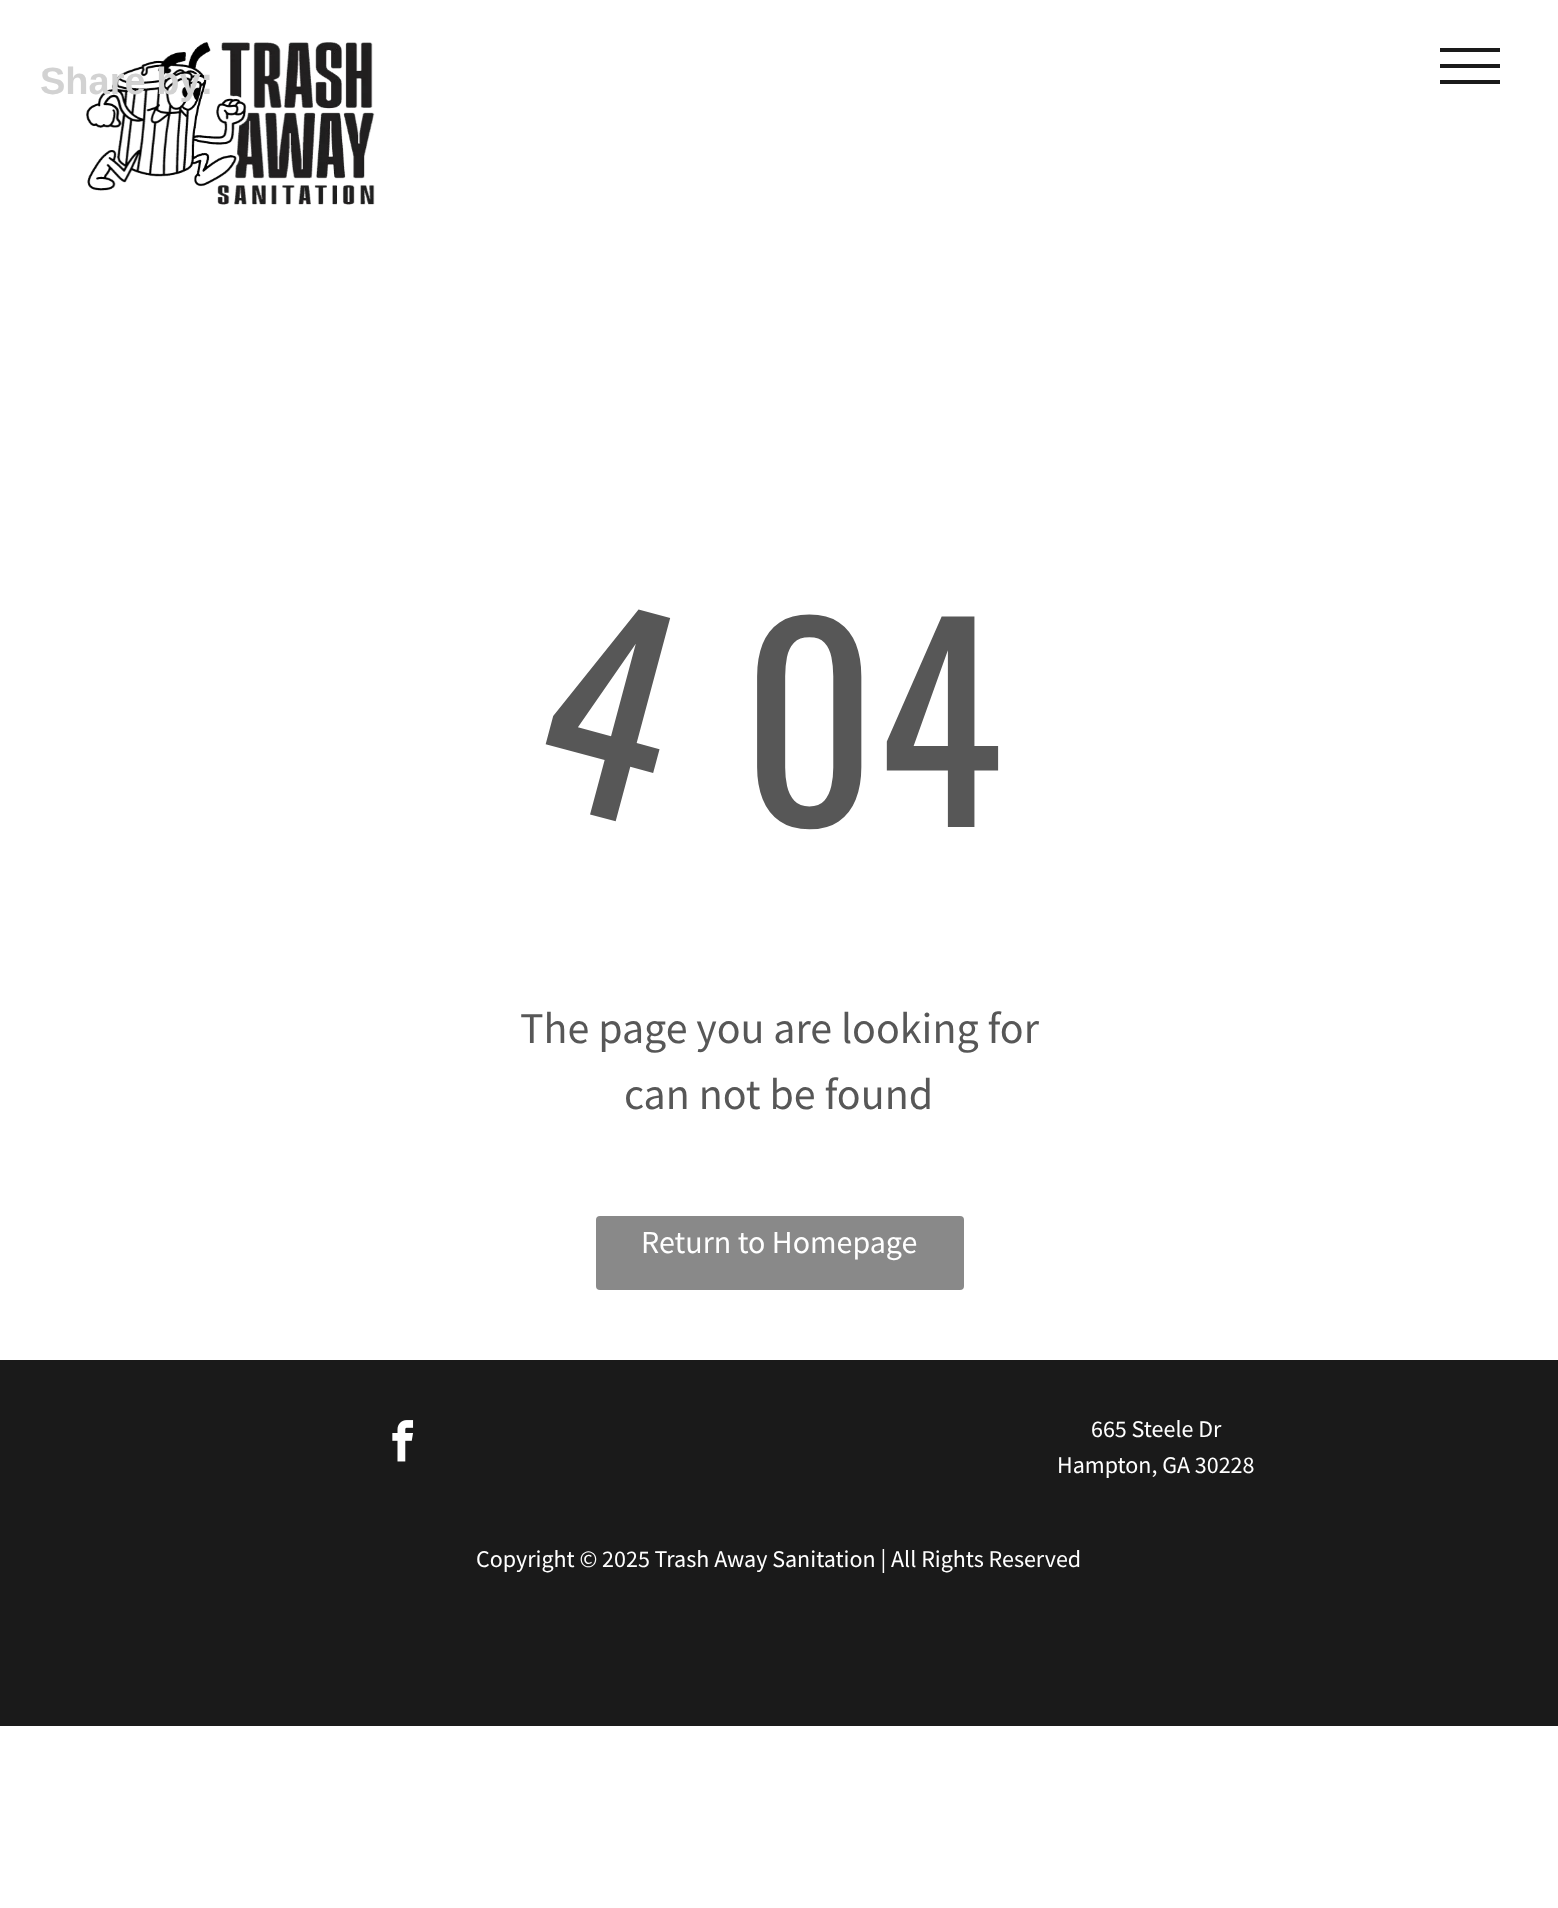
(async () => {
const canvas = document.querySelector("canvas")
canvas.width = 1558
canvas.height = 1908
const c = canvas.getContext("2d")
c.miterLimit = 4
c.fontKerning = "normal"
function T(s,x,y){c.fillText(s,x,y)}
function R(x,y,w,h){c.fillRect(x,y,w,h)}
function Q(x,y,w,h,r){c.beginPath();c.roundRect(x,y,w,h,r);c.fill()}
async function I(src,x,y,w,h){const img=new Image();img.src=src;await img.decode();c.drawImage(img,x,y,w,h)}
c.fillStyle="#fff"
R(0,0,1558,1908)
await I("1.png",86,42,289,163)
c.font="bold 38px Liberation Sans"
c.fillStyle="#d2d2d2"
T("Share by:",40,94)
c.fillStyle="#1a1a1a"
R(1440,48,60,4)
R(1440,64,60,4)
R(1440,80,60,4)
c.font="260px Oswald"
c.fillStyle="#575757"
c.save()
c.translate(521,796)
c.rotate(15 * Math.PI / 180)
c.fillText("4",0,0)
c.restore()
T("04",742,827)
c.font="44px Source Sans Pro"
T("The page you are looking for",520,1043)
T("can not be found",624,1109)
c.fillStyle="#898989"
Q(596,1216,368,74,4)
c.font="32px Source Sans Pro"
c.fillStyle="#fff"
T("Return to Homepage",641,1253)
c.fillStyle="#1a1a1a"
R(0,1360,1558,366)
await I("2.png",392,1420,22,42)
c.font="24px Source Sans Pro"
c.fillStyle="#fff"
T("665 Steele Dr",1091,1437)
T("Hampton, GA 30228",1057,1473)
T("Copyright © 2025 Trash Away Sanitation | All Rights Reserved",476,1567)
})()
